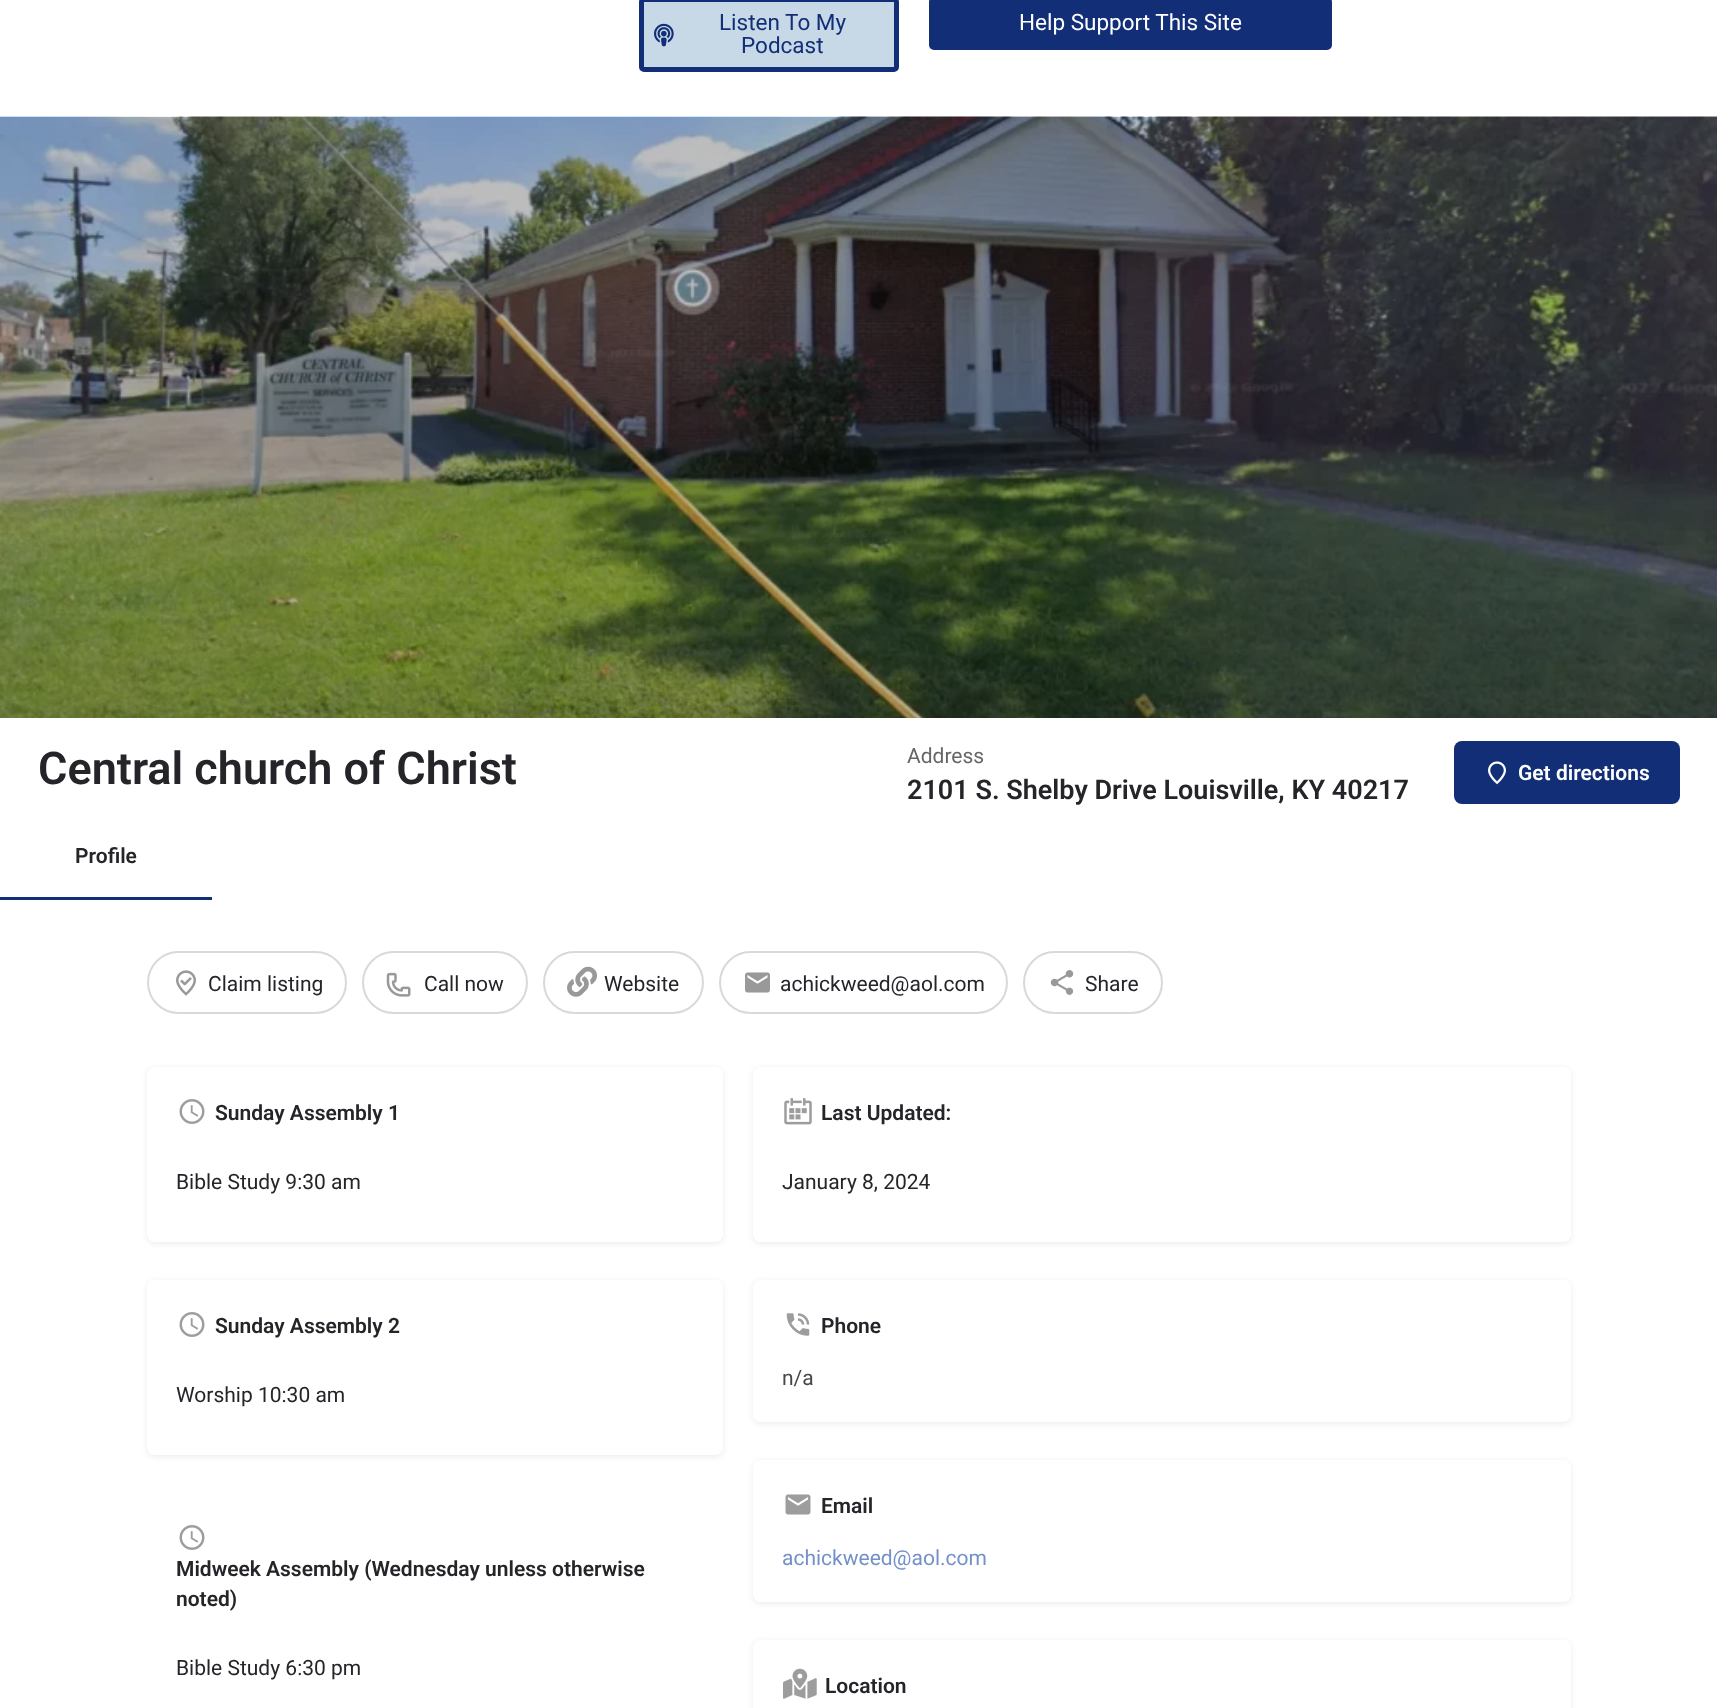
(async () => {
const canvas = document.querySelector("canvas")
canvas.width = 1717
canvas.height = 1708
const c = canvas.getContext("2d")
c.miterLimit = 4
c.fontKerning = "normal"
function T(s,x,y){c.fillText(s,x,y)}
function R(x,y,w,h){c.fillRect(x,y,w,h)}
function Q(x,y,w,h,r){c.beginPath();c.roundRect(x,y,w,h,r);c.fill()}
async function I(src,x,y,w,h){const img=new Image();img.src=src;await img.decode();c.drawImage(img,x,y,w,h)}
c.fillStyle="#fff"
R(0,0,1717,1708)
c.fillStyle="#c7d8e7"
c.beginPath()
c.roundRect(641.5,-.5,255,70,2.5)
c.fill()
c.strokeStyle="#122e76"
c.lineWidth=5
c.stroke()
await I("1.png",654,23,20,24)
c.font="22.5px Roboto"
c.fillStyle="#122e76"
T("Listen To My",719,30)
T("Podcast",741,53)
c.beginPath()
c.roundRect(931.5,-.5,398,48,2.5)
c.fill()
c.stroke()
c.fillStyle="#fff"
T("Help Support This Site",1019,30)
await I("2.png",0,116,1717,602)
c.font="600 45px Roboto"
c.fillStyle="#242429"
T("Central church of Christ",38,784)
c.font="21px Roboto"
c.fillStyle="#666669"
T("Address",907,763)
c.font="600 27px Roboto"
c.fillStyle="#242429"
T("2101 S. Shelby Drive Louisville, KY 40217",907,799)
c.fillStyle="#122e76"
Q(1454,741,226,63,8)
await I("3.png",1488,761,18,24)
c.font="600 21px Roboto"
c.fillStyle="#fff"
T("Get directions",1518,780)
c.fillStyle="#242429"
T("Profile",75,863)
c.fillStyle="#122e76"
R(0,897,212,3)
c.beginPath()
c.roundRect(148,952,198,61,30.5)
c.strokeStyle="#d9d9d9"
c.lineWidth=2
c.stroke()
await I("4.png",176,970,20,26)
c.font="21px Roboto"
c.fillStyle="#242429"
T("Claim listing",208,991)
c.beginPath()
c.roundRect(363,952,164,61,30.5)
c.stroke()
await I("5.png",386,972,25,25)
T("Call now",424,991)
c.beginPath()
c.roundRect(544,952,159,61,30.5)
c.stroke()
await I("6.png",567,966,30,31)
T("Website",604,991)
c.beginPath()
c.roundRect(720,952,287,61,30.5)
c.stroke()
await I("7.png",745,972,25,21)
T("achickweed@aol.com",780,991)
c.beginPath()
c.roundRect(1024,952,138,61,30.5)
c.stroke()
await I("8.png",1050,970,24,25)
T("Share",1085,991)
c.fillStyle="#00000012"
c.filter="blur(3px)"
c.beginPath()
c.roundRect(147,1068,576,176,8)
c.fill()
c.filter="none"
c.fillStyle="#fff"
Q(147,1067,576,175,8)
await I("9.png",179,1099,26,25)
c.font="600 21px Roboto"
c.fillStyle="#242429"
T("Sunday Assembly 1",215,1120)
c.font="21px Roboto"
T("Bible Study 9:30 am",176,1189)
c.fillStyle="#00000012"
c.filter="blur(3px)"
c.beginPath()
c.roundRect(147,1281,576,176,8)
c.fill()
c.filter="none"
c.fillStyle="#fff"
Q(147,1280,576,175,8)
await I("9.png",179,1312,26,25)
c.font="600 21px Roboto"
c.fillStyle="#242429"
T("Sunday Assembly 2",215,1333)
c.font="21px Roboto"
T("Worship 10:30 am",176,1402)
await I("9.png",179,1525,26,25)
c.font="600 21px Roboto"
T("Midweek Assembly (Wednesday unless otherwise",176,1576)
T("noted)",176,1606)
c.font="21px Roboto"
T("Bible Study 6:30 pm",176,1675)
c.fillStyle="#00000012"
c.filter="blur(3px)"
c.beginPath()
c.roundRect(753,1068,818,176,8)
c.fill()
c.filter="none"
c.fillStyle="#fff"
Q(753,1067,818,175,8)
await I("10.png",784,1098,28,27)
c.font="600 21px Roboto"
c.fillStyle="#242429"
T("Last Updated:",821,1120)
c.font="21px Roboto"
T("January 8, 2024",782,1189)
c.fillStyle="#00000012"
c.filter="blur(3px)"
c.beginPath()
c.roundRect(753,1281,818,143,8)
c.fill()
c.filter="none"
c.fillStyle="#fff"
Q(753,1280,818,142,8)
await I("11.png",786,1313,24,23)
c.font="600 21px Roboto"
c.fillStyle="#242429"
T("Phone",821,1333)
c.font="21px Roboto"
c.fillStyle="#484848"
T("n/a",782,1385)
c.fillStyle="#00000012"
c.filter="blur(3px)"
c.beginPath()
c.roundRect(753,1461,818,143,8)
c.fill()
c.filter="none"
c.fillStyle="#fff"
Q(753,1460,818,142,8)
await I("12.png",785,1494,26,21)
c.font="600 21px Roboto"
c.fillStyle="#242429"
T("Email",821,1513)
c.font="21px Roboto"
c.fillStyle="#7391c8"
T("achickweed@aol.com",782,1565)
c.fillStyle="#00000012"
c.filter="blur(3px)"
c.beginPath()
c.roundRect(753,1641,818,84,8)
c.fill()
c.filter="none"
c.fillStyle="#fff"
Q(753,1640,818,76,8)
await I("13.png",783,1668,34,31)
c.font="600 21px Roboto"
c.fillStyle="#242429"
T("Location",825,1693)
})()
